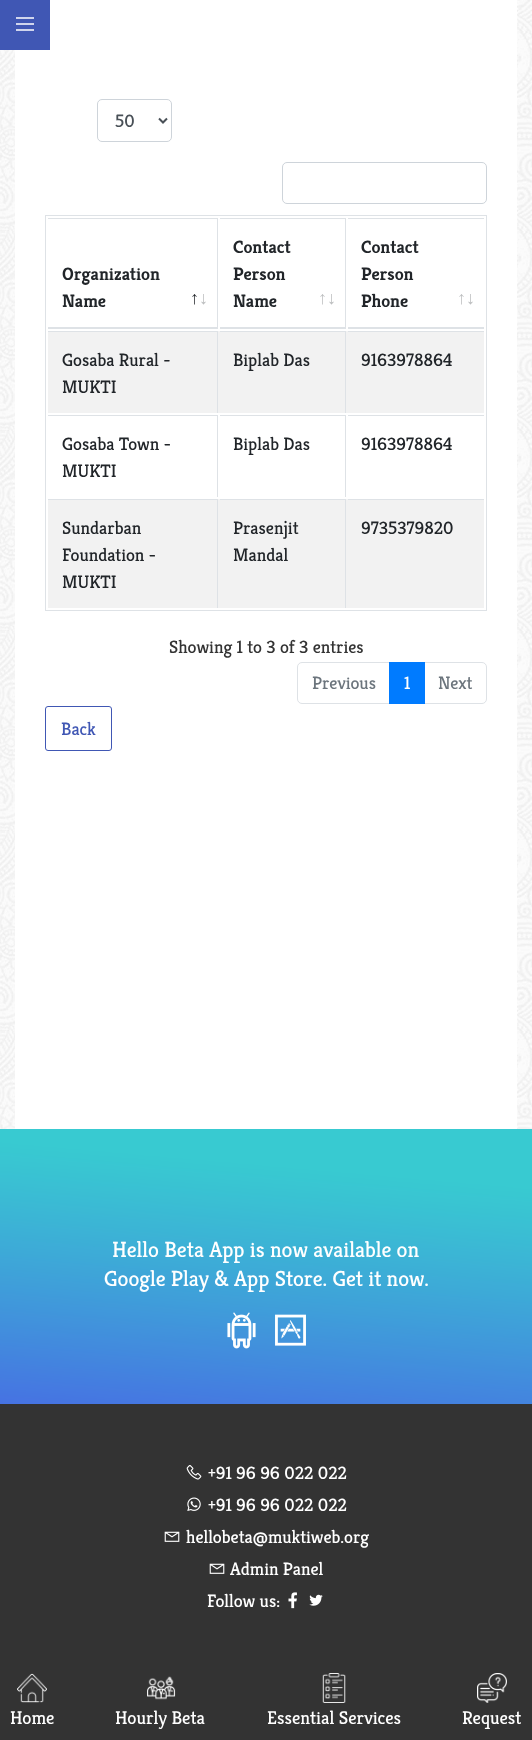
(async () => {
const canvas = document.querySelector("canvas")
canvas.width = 532
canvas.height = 1740
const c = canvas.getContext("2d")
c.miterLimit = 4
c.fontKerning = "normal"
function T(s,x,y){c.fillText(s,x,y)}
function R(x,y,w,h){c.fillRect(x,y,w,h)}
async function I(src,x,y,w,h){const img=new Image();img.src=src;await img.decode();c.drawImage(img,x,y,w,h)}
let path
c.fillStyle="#fff"
R(0,0,532,1740)
await I("1.png",0,0,532,1129)
R(15,0,502,1129)
c.fillStyle="#4057b4"
R(0,0,50,50)
await I("2.png",16,17,18,14)
c.beginPath()
c.roundRect(97.5,99.5,74,42,4.5)
c.strokeStyle="#ced4da"
c.stroke()
path = new Path2D("M159 118.5l4 4l4-4")
c.strokeStyle="#495057"
c.lineWidth=2
c.stroke(path)
c.font="18px Kreon"
c.fillStyle="#495057"
T("50",115,127)
c.beginPath()
c.roundRect(282.5,162.5,204,41,4.5)
c.strokeStyle="#ced4da"
c.lineWidth=1
c.stroke()
c.strokeStyle="#dee2e6"
c.strokeRect(45.5,215.5,441,395)
c.fillStyle="#dee2e6"
R(48,218,170,1)
R(217,218,1,111)
R(48,327,170,2)
c.font="bold 18px Kreon"
c.fillStyle="#212529"
T("Organization",62,280)
T("Name",62,307)
c.font="bold 18px Liberation Serif"
T("↑",190,304)
c.fillStyle="#bcbebf"
T("↓",199,304)
c.fillStyle="#dee2e6"
R(220,218,126,1)
R(345,218,1,111)
R(220,327,126,2)
c.font="bold 18px Kreon"
c.fillStyle="#212529"
T("Contact",233,253)
T("Person",233,280)
T("Name",233,307)
c.font="bold 18px Liberation Serif"
c.fillStyle="#bcbebf"
T("↑↓",318,304)
c.fillStyle="#dee2e6"
R(348,218,136,1)
R(348,327,136,2)
c.font="bold 18px Kreon"
c.fillStyle="#212529"
T("Contact",361,253)
T("Person",361,280)
T("Phone",361,307)
c.font="bold 18px Liberation Serif"
c.fillStyle="#bcbebf"
T("↑↓",457,304)
c.fillStyle="#f2f2f2"
R(48,331,436,82)
c.fillStyle="#dee2e6"
R(48,331,170,1)
R(217,331,1,82)
c.font="18px Kreon"
c.fillStyle="#212529"
T("Gosaba Rural -",62,366)
T("MUKTI",62,393)
c.fillStyle="#dee2e6"
R(220,331,126,1)
R(345,331,1,82)
c.fillStyle="#212529"
T("Biplab Das",233,366)
c.fillStyle="#dee2e6"
R(348,331,136,1)
c.fillStyle="#212529"
T("9163978864",361,366)
c.fillStyle="#dee2e6"
R(48,415,170,1)
R(217,415,1,82)
c.fillStyle="#212529"
T("Gosaba Town -",62,450)
T("MUKTI",62,477)
c.fillStyle="#dee2e6"
R(220,415,126,1)
R(345,415,1,82)
c.fillStyle="#212529"
T("Biplab Das",233,450)
c.fillStyle="#dee2e6"
R(348,415,136,1)
c.fillStyle="#212529"
T("9163978864",361,450)
c.fillStyle="#f2f2f2"
R(48,499,436,109)
c.fillStyle="#dee2e6"
R(48,499,170,1)
R(217,499,1,109)
c.fillStyle="#212529"
T("Sundarban",62,534)
T("Foundation -",62,561)
T("MUKTI",62,588)
c.fillStyle="#dee2e6"
R(220,499,126,1)
R(345,499,1,109)
c.fillStyle="#212529"
T("Prasenjit",233,534)
T("Mandal",233,561)
c.fillStyle="#dee2e6"
R(348,499,136,1)
c.fillStyle="#212529"
T("9735379820",361,534)
c.fillStyle="#333"
T("Showing 1 to 3 of 3 entries",169,653)
c.beginPath()
c.roundRect(297.5,662.5,92,41,[4.5,0,0,4.5])
c.stroke()
c.fillStyle="#6c757d"
T("Previous",312,689)
c.beginPath()
c.roundRect(424.5,662.5,62,41,[0,4.5,4.5,0])
c.stroke()
c.fillStyle="#007bff"
R(389,662,36,42)
c.fillStyle="#fff"
T("1",404,689)
c.fillStyle="#6c757d"
T("Next",438,689)
c.beginPath()
c.roundRect(45.5,706.5,66,44,2.5)
c.strokeStyle="#4057b4"
c.stroke()
c.fillStyle="#4057b4"
T("Back",61,735)
await I("3.png",0,1129,532,275)
c.font="22px Kreon"
c.fillStyle="#fff"
T("Hello Beta App is now available on",112,1257)
T("Google Play & App Store. Get it now.",104,1286)
await I("4.png",227,1312,29,37)
await I("5.png",275,1314,31,32)
c.fillStyle="#333"
R(0,1404,532,336)
await I("6.png",186,1465,16,15)
c.font="18px Kreon"
c.fillStyle="#fff"
T("+91 96 96 022 022",208,1479)
await I("7.png",187,1497,14,14)
T("+91 96 96 022 022",208,1511)
await I("8.png",164,1531,16,11)
T("hellobeta@muktiweb.org",186,1543)
await I("8.png",209,1563,16,11)
T("Admin Panel",230,1575)
T("Follow us:",207,1607)
await I("9.png",288,1592,9,17)
await I("10.png",309,1594,14,12)
await I("11.png",17,1673,30,30)
c.font="18.5px Kreon"
T("Home",10,1724)
await I("12.png",147,1676,29,24)
T("Hourly Beta",115,1724)
await I("13.png",322,1673,24,30)
T("Essential Services",267,1724)
await I("14.png",477,1673,30,30)
T("Request",462,1724)
})()
